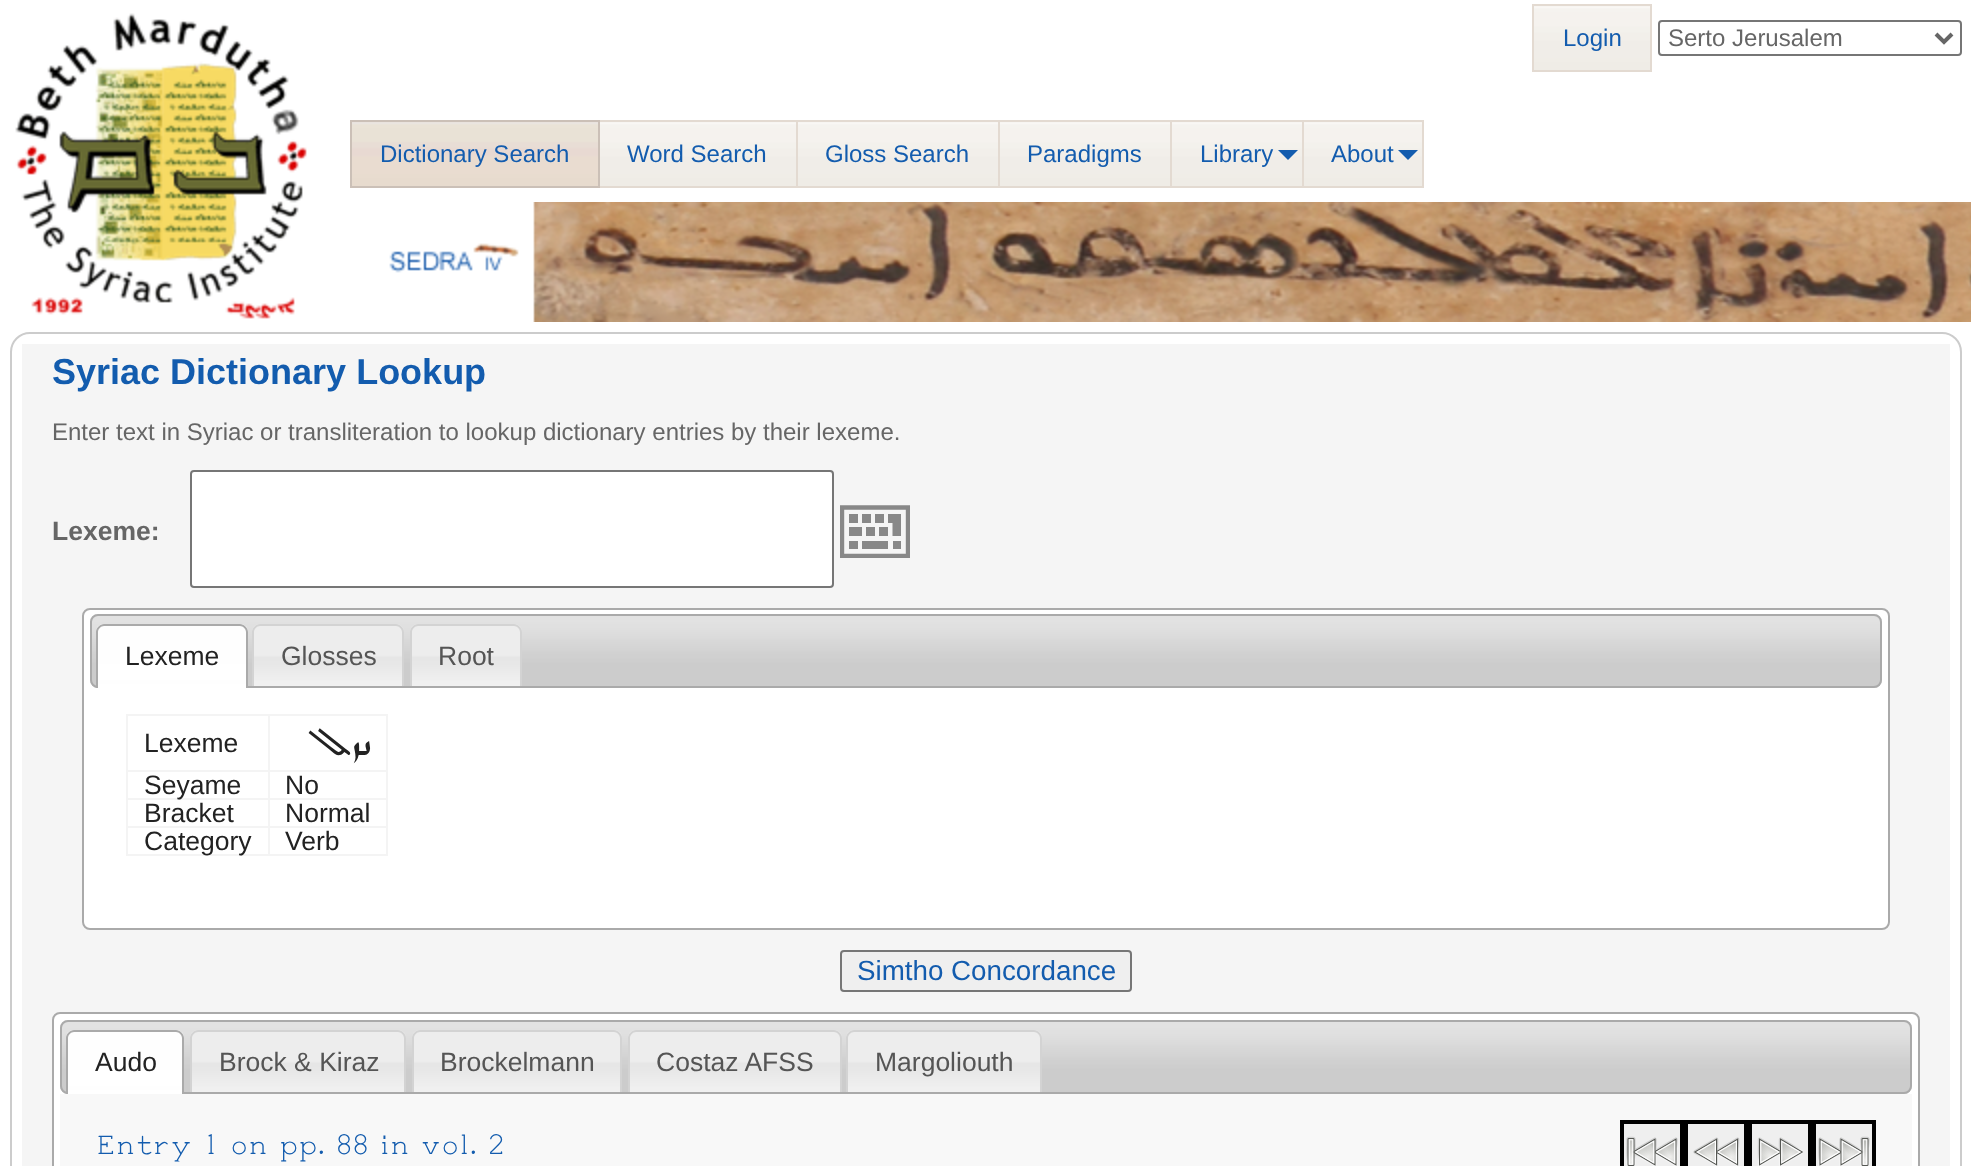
(async () => {
const canvas = document.querySelector("canvas")
canvas.width = 1971
canvas.height = 1166
const c = canvas.getContext("2d")
c.miterLimit = 4
c.fontKerning = "normal"
function T(s,x,y){c.fillText(s,x,y)}
function R(x,y,w,h){c.fillRect(x,y,w,h)}
async function I(src,x,y,w,h){const img=new Image();img.src=src;await img.decode();c.drawImage(img,x,y,w,h)}
let path
c.fillStyle="#fff"
R(0,0,1971,1166)
await I("1.png",15,13,292,306)
await I("2.png",1534,6,116,64)
c.strokeStyle="#e3dad1"
c.lineWidth=2
c.strokeRect(1533,5,118,66)
c.font="24px Liberation Sans"
c.fillStyle="#135cae"
T("Login",1563,46)
c.beginPath()
c.roundRect(1659,21,302,34,3)
c.strokeStyle="#767676"
c.stroke()
path = new Path2D("M1936 34l8 8l8-8")
c.strokeStyle="#666"
c.lineWidth=4
c.stroke(path)
c.fillStyle="#666"
T("Serto Jerusalem",1668,46)
await I("3.png",352,122,246,64)
c.strokeStyle="#cbc0b7"
c.lineWidth=2
c.strokeRect(351,121,248,66)
c.fillStyle="#135cae"
T("Dictionary Search",380,162)
await I("4.png",600,122,196,64)
c.fillStyle="#e3dad1"
R(600,120,824,2)
R(796,120,2,68)
R(600,186,198,2)
c.fillStyle="#135cae"
T("Word Search",627,162)
await I("5.png",798,122,200,64)
c.fillStyle="#e3dad1"
R(998,120,2,68)
R(798,186,202,2)
c.fillStyle="#135cae"
T("Gloss Search",825,162)
await I("6.png",1000,122,170,64)
c.fillStyle="#e3dad1"
R(1170,120,2,68)
R(1000,186,172,2)
c.fillStyle="#135cae"
T("Paradigms",1027,162)
await I("7.png",1172,122,130,64)
c.fillStyle="#e3dad1"
R(1302,120,2,68)
R(1172,186,132,2)
c.fillStyle="#135cae"
T("Library",1200,162)
path = new Path2D("M1278 150h20l-10 10z")
c.fill(path)
await I("8.png",1304,122,118,64)
c.fillStyle="#e3dad1"
R(1422,120,2,68)
R(1304,186,120,2)
c.fillStyle="#135cae"
T("About",1331,162)
path = new Path2D("M1398 150h20l-10 10z")
c.fill(path)
await I("9.png",389,202,1582,120)
c.beginPath()
c.roundRect(11,333,1950,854,19)
c.strokeStyle="#ccc"
c.stroke()
c.fillStyle="#f5f5f5"
R(22,344,1928,822)
c.font="bold 36px Liberation Sans"
c.fillStyle="#135cae"
T("Syriac Dictionary Lookup",52,384)
c.font="24px Liberation Sans"
c.fillStyle="#666"
T("Enter text in Syriac or transliteration to lookup dictionary entries by their lexeme.",52,440)
c.fillStyle="#fff"
c.beginPath()
c.roundRect(191,471,642,116,3)
c.fill()
c.strokeStyle="#767676"
c.stroke()
c.save()
c.beginPath()
c.rect(840,488,70,70)
c.clip()
path = new Path2D("M842 507.5h66v48.5h-66z")
c.strokeStyle="#888"
c.lineWidth=4.4
c.stroke(path)
c.restore()
c.font="bold 26.5px Liberation Sans"
c.fillStyle="#666"
T("Lexeme:",52,540)
c.fillStyle="#888"
R(849,514,9,9)
R(862,514,9,9)
R(875,514,9,9)
path = new Path2D("M888 514h13v22h-8.5v-13h-4.5z")
c.fill(path)
R(849,527,13,9)
R(866,527,9,9)
R(879,527,9,9)
R(849,541,9,8)
R(862,541,26,8)
R(893,541,8,8)
c.fillStyle="#fff"
c.beginPath()
c.roundRect(83,609,1806,320,7)
c.fill()
c.strokeStyle="#aaa"
c.stroke()
await I("10.png",90,614,1792,74)
c.beginPath()
c.roundRect(91,615,1790,72,7)
c.stroke()
await I("11.png",96,624,152,64)
c.fillStyle="#aaa"
path = new Path2D("M104 624h136c4 0 8 4 8 8v56h-152v-56c0-4 4-8 8-8zm0 2h136c3 0 6 3 6 6v56h-148v-56c0-3 3-6 6-6z")
c.fill(path,"evenodd")
c.font="26.5px Liberation Sans"
c.fillStyle="#222"
T("Lexeme",125,665)
await I("12.png",252,624,152,62)
c.fillStyle="#d3d3d3"
path = new Path2D("M260 624h136c4 0 8 4 8 8v54h-152v-54c0-4 4-8 8-8zm0 2h136c3 0 6 3 6 6v54h-148v-54c0-3 3-6 6-6z")
c.fill(path,"evenodd")
c.fillStyle="#555"
T("Glosses",281,665)
await I("13.png",410,624,112,62)
c.fillStyle="#d3d3d3"
path = new Path2D("M418 624h96c4 0 8 4 8 8v54h-112v-54c0-4 4-8 8-8zm0 2h96c3 0 6 3 6 6v54h-108v-54c0-3 3-6 6-6z")
c.fill(path,"evenodd")
c.fillStyle="#555"
T("Root",438,665)
c.fillStyle="#f4f4f4"
R(126,714,262,2)
R(386,714,2,142)
R(126,854,262,2)
R(126,714,2,142)
c.fillStyle="#222"
T("Lexeme",144,752)
c.fillStyle="#f4f4f4"
R(268,770,120,2)
R(268,798,120,2)
R(268,826,120,2)
R(268,826,2,30)
R(126,826,144,2)
R(268,798,2,30)
R(126,798,144,2)
R(268,770,2,30)
R(126,770,144,2)
R(268,714,2,58)
c.direction="rtl"
c.font="53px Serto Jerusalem"
c.fillStyle="#222"
T("ܢܙܠ",370,755)
c.direction="ltr"
c.font="26.5px Liberation Sans"
T("Seyame",144,794)
T("No",285,794)
T("Bracket",144,822)
T("Normal",285,822)
T("Category",144,850)
T("Verb",285,850)
c.fillStyle="#efefef"
c.beginPath()
c.roundRect(841,951,290,40,3)
c.fill()
c.strokeStyle="#767676"
c.stroke()
c.font="27.75px Liberation Sans"
c.fillStyle="#135cae"
T("Simtho Concordance",857,980)
c.fillStyle="#fff"
c.beginPath()
c.roundRect(53,1013,1866,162,7)
c.fill()
c.strokeStyle="#aaa"
c.stroke()
await I("14.png",60,1020,1852,74)
c.beginPath()
c.roundRect(61,1021,1850,72,7)
c.stroke()
await I("15.png",66,1030,118,64)
c.fillStyle="#aaa"
path = new Path2D("M74 1030h102c4 0 8 4 8 8v56h-118v-56c0-4 4-8 8-8zm0 2h102c3 0 6 3 6 6v56h-114v-56c0-3 3-6 6-6z")
c.fill(path,"evenodd")
c.font="26.5px Liberation Sans"
c.fillStyle="#222"
T("Audo",95,1071)
await I("16.png",190,1030,216,62)
c.fillStyle="#d3d3d3"
path = new Path2D("M198 1030h200c4 0 8 4 8 8v54h-216v-54c0-4 4-8 8-8zm0 2h200c3 0 6 3 6 6v54h-212v-54c0-3 3-6 6-6z")
c.fill(path,"evenodd")
c.fillStyle="#555"
T("Brock & Kiraz",219,1071)
await I("17.png",412,1030,210,62)
c.fillStyle="#d3d3d3"
path = new Path2D("M420 1030h194c4 0 8 4 8 8v54h-210v-54c0-4 4-8 8-8zm0 2h194c3 0 6 3 6 6v54h-206v-54c0-3 3-6 6-6z")
c.fill(path,"evenodd")
c.fillStyle="#555"
T("Brockelmann",440,1071)
await I("18.png",628,1030,214,62)
c.fillStyle="#d3d3d3"
path = new Path2D("M636 1030h198c4 0 8 4 8 8v54h-214v-54c0-4 4-8 8-8zm0 2h198c3 0 6 3 6 6v54h-210v-54c0-3 3-6 6-6z")
c.fill(path,"evenodd")
c.fillStyle="#555"
T("Costaz AFSS",656,1071)
await I("19.png",846,1030,196,62)
c.fillStyle="#d3d3d3"
path = new Path2D("M854 1030h180c4 0 8 4 8 8v54h-196v-54c0-4 4-8 8-8zm0 2h180c3 0 6 3 6 6v54h-192v-54c0-3 3-6 6-6z")
c.fill(path,"evenodd")
c.fillStyle="#555"
T("Margoliouth",875,1071)
c.fillStyle="#f8f8f8"
R(60,1094,1852,72)
c.font="bold 32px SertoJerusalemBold"
c.fillStyle="#135cae"
T("Entry 1 on pp. 88 in vol. 2",96,1154)
c.fillStyle="#efefef"
R(1624,1124,56,42)
await I("20.png",1626,1136,52,30)
c.strokeStyle="#000"
c.lineWidth=4
c.strokeRect(1622,1122,60,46)
R(1688,1124,56,42)
await I("21.png",1693,1137,47,29)
c.strokeRect(1686,1122,60,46)
R(1752,1124,56,42)
await I("22.png",1757,1137,46,29)
c.strokeRect(1750,1122,60,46)
R(1816,1124,56,42)
await I("23.png",1818,1136,52,30)
c.strokeRect(1814,1122,60,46)
})()
